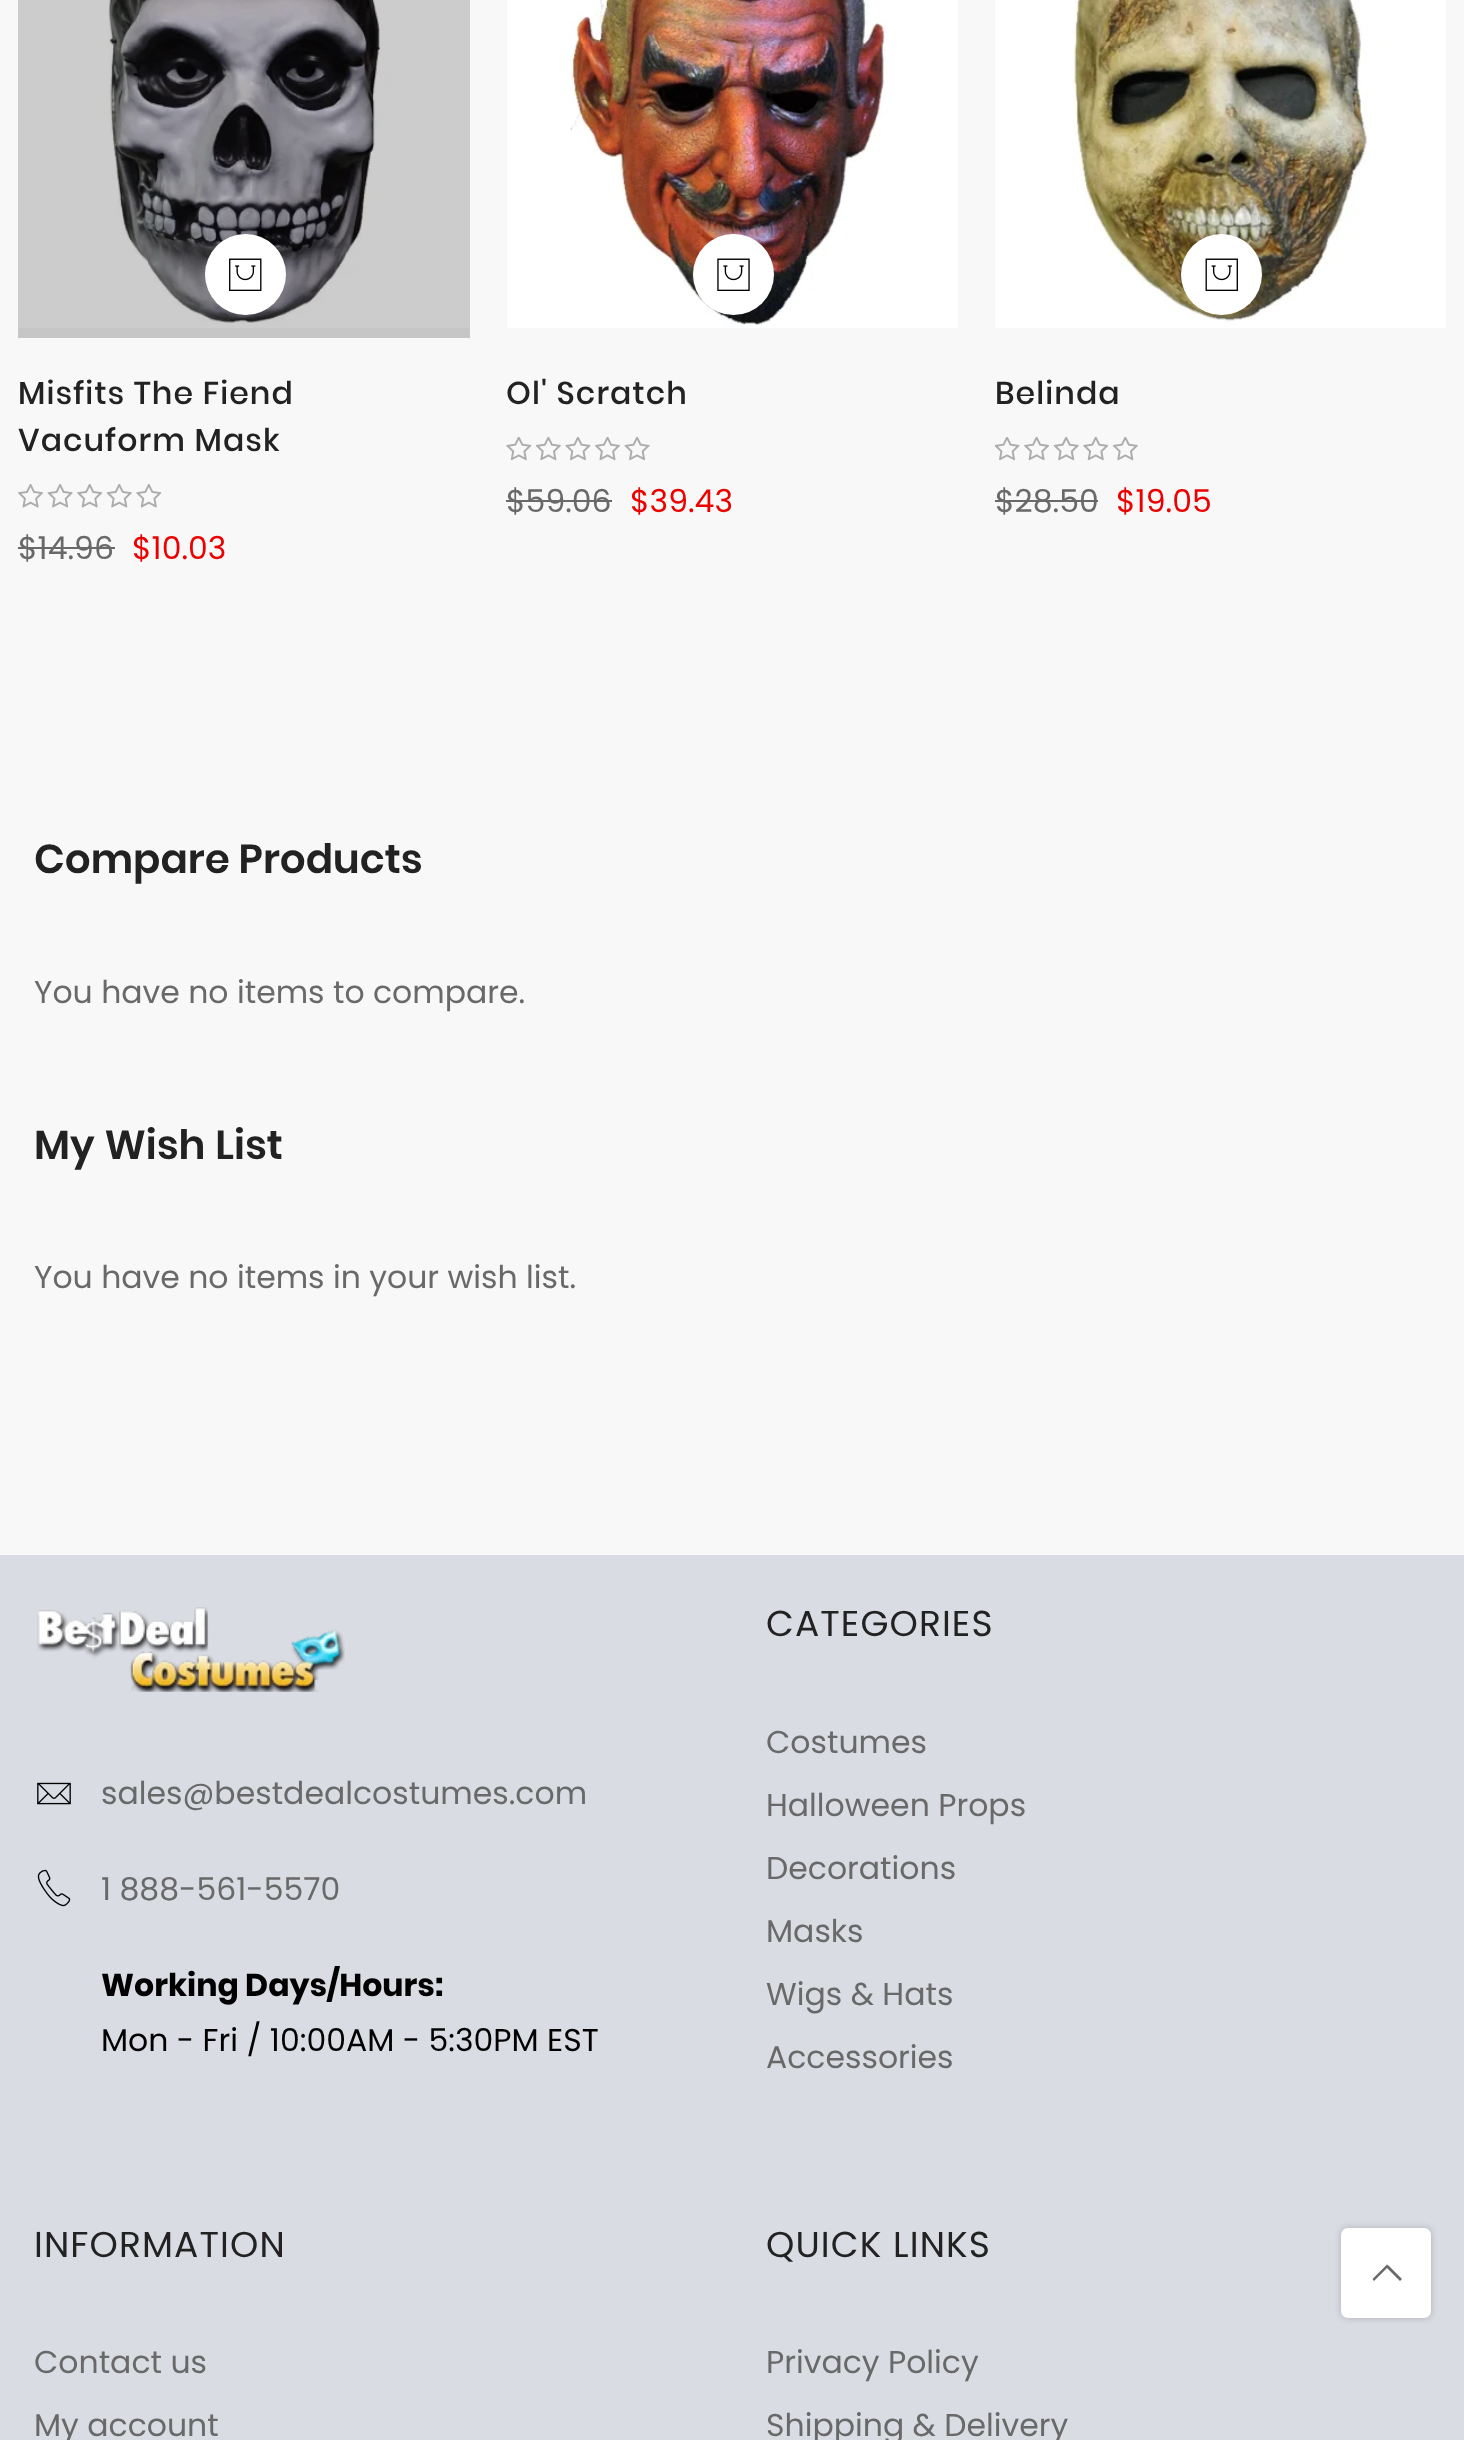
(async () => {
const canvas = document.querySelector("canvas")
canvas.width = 1464
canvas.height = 2440
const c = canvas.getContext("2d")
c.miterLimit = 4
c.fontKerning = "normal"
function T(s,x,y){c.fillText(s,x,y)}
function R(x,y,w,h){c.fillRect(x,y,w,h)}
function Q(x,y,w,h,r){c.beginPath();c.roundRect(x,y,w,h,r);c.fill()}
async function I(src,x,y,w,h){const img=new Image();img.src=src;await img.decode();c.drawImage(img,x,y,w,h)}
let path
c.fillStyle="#f8f8f8"
R(0,0,1464,2440)
c.fillStyle="#c6c6c6"
R(18,328,452,10)
await I("1.png",18,0,452,328)
c.fillStyle="#fff"
c.beginPath()
c.arc(245.5,274.5,40.5,0,7)
c.fill()
await I("2.png",229,258,33,33)
c.letterSpacing="1.1px"
c.font="500 31.5px Poppins"
c.fillStyle="#222"
T("Misfits The Fiend",18,404)
T("Vacuform Mask",18,451)
await I("3.png",18,484,144,24)
c.letterSpacing="0px"
c.font="31.5px Poppins"
c.fillStyle="#696969"
T("$14.96",18,559)
R(18,547,97,2)
c.fillStyle="#ec0101"
T("$10.03",132,559)
await I("4.png",507,0,451,328)
c.fillStyle="#fff"
c.beginPath()
c.arc(733.5,274.5,40.5,0,7)
c.fill()
await I("5.png",717,258,33,33)
c.letterSpacing="1.1px"
c.font="500 31.5px Poppins"
c.fillStyle="#222"
T("Ol' Scratch",506,404)
await I("6.png",506,437,144,24)
c.letterSpacing="0px"
c.font="31.5px Poppins"
c.fillStyle="#696969"
T("$59.06",506,512)
R(506,500,106,2)
c.fillStyle="#ec0101"
T("$39.43",630,512)
await I("7.png",995,0,451,328)
c.fillStyle="#fff"
c.beginPath()
c.arc(1221.5,274.5,40.5,0,7)
c.fill()
await I("8.png",1205,258,33,33)
c.letterSpacing="1.1px"
c.font="500 31.5px Poppins"
c.fillStyle="#222"
T("Belinda",995,404)
await I("9.png",995,437,143,24)
c.letterSpacing="0px"
c.font="31.5px Poppins"
c.fillStyle="#696969"
T("$28.50",995,512)
R(995,500,103,2)
c.fillStyle="#ec0101"
T("$19.05",1116,512)
c.font="600 40.5px Poppins"
c.fillStyle="#222"
T("Compare Products",34,873)
c.font="31.5px Poppins"
c.fillStyle="#696969"
T("You have no items to compare.",34,1003)
c.wordSpacing="1px"
c.font="600 40.5px Poppins"
c.fillStyle="#222"
T("My Wish List",34,1159)
c.wordSpacing="0px"
c.font="31.5px Poppins"
c.fillStyle="#696969"
T("You have no items in your wish list.",34,1288)
c.fillStyle="#dadce3"
R(0,1555,1464,885)
await I("10.png",37,1607,308,85)
await I("11.png",37,1782,34,23)
c.fillStyle="#696969"
T("sales@bestdealcostumes.com",101,1804)
await I("12.png",37,1869,34,38)
T("1 888-561-5570",101,1900)
c.font="bold 31.5px Poppins"
c.fillStyle="#000"
T("Working Days/Hours:",101,1996)
c.font="31.5px Poppins"
T("Mon - Fri / 10:00AM - 5:30PM EST",101,2051)
c.letterSpacing="1.1px"
c.font="36px Poppins"
c.fillStyle="#222"
T("CATEGORIES",766,1636)
c.letterSpacing="0px"
c.font="31.5px Poppins"
c.fillStyle="#696969"
T("Costumes",766,1753)
T("Halloween Props",766,1816)
T("Decorations",766,1879)
T("Masks",766,1942)
T("Wigs & Hats",766,2005)
T("Accessories",766,2068)
c.letterSpacing="1.1px"
c.font="36px Poppins"
c.fillStyle="#222"
T("INFORMATION",34,2257)
c.letterSpacing="0px"
c.font="31.5px Poppins"
c.fillStyle="#696969"
T("Contact us",34,2373)
T("My account",34,2436)
c.letterSpacing="1.1px"
c.font="36px Poppins"
c.fillStyle="#222"
T("QUICK LINKS",766,2257)
c.letterSpacing="0px"
c.font="31.5px Poppins"
c.fillStyle="#696969"
T("Privacy Policy",766,2373)
T("Shipping & Delivery",766,2436)
c.fillStyle="#00000033"
c.filter="blur(3.5px)"
c.beginPath()
c.roundRect(1341,2228,90,90,7)
c.fill()
c.filter="none"
c.fillStyle="#fff"
Q(1341,2228,90,90,7)
c.fillStyle="#696969"
path = new Path2D("M1389 2266l-2-1.5l-14.5 14.5l1.5 2l13-13l13 13l2-2z")
c.fill(path)
})()
